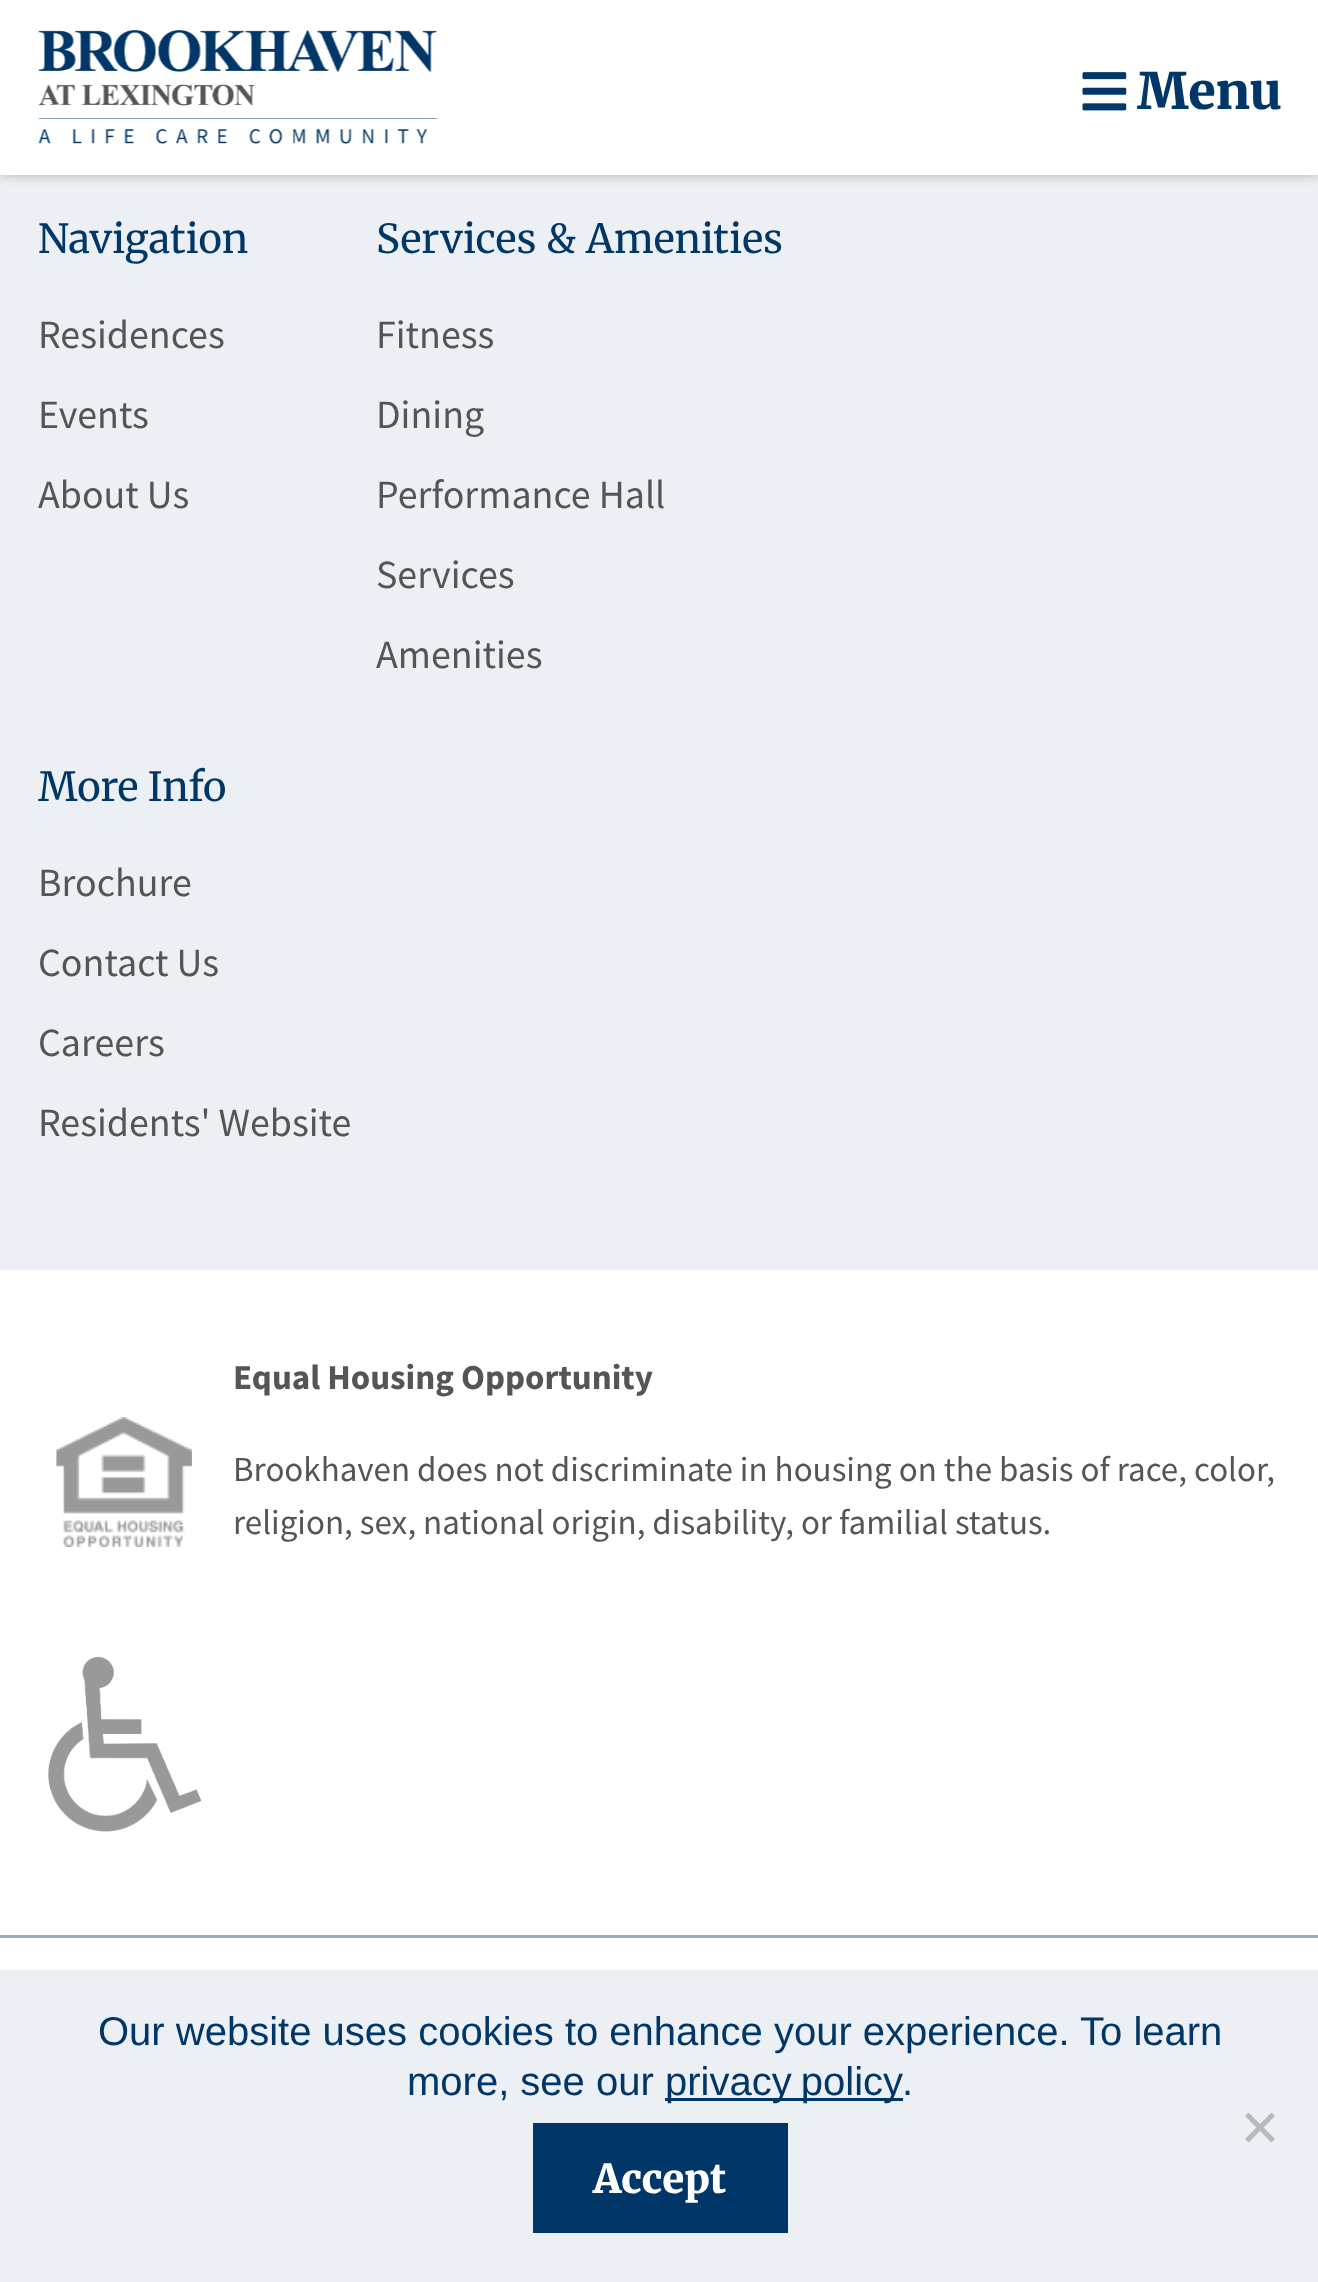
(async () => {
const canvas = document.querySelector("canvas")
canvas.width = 1318
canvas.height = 2282
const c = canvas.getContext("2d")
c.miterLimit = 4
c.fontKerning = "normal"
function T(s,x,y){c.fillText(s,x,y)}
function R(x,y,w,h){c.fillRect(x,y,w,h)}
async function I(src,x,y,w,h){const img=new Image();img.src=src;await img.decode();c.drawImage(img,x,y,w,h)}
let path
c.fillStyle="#fff"
R(0,0,1318,2282)
c.fillStyle="#ecf0f4"
R(0,175,1318,1095)
c.fillStyle="#00000040"
c.filter="blur(6px)"
c.beginPath()
c.rect(0,0,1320,175)
c.fill()
c.filter="none"
c.fillStyle="#fff"
R(0,0,1318,175)
await I("1.png",38,30,400,114)
await I("2.png",1082,72,45,39)
c.font="900 50px Merriweather"
c.fillStyle="#003768"
T("Menu",1137,109)
c.font="40px Merriweather"
T("Navigation",38,253)
c.font="40px Source Sans Pro"
c.fillStyle="#555"
T("Residences",38,348)
T("Events",38,428)
T("About Us",38,508)
c.font="40px Merriweather"
c.fillStyle="#003768"
T("Services & Amenities",376,253)
c.font="40px Source Sans Pro"
c.fillStyle="#555"
T("Fitness",376,348)
T("Dining",376,428)
T("Performance Hall",376,508)
T("Services",376,588)
T("Amenities",376,668)
c.font="40px Merriweather"
c.fillStyle="#003768"
T("More Info",38,801)
c.font="40px Source Sans Pro"
c.fillStyle="#555"
T("Brochure",38,896)
T("Contact Us",38,976)
T("Careers",38,1056)
T("Residents' Website",38,1136)
c.font="bold 35px Source Sans Pro"
T("Equal Housing Opportunity",233,1389)
await I("3.png",56,1417,136,130)
c.font="35px Source Sans Pro"
T("Brookhaven does not discriminate in housing on the basis of race, color,",233,1481)
T("religion, sex, national origin, disability, or familial status.",233,1534)
await I("4.png",48,1657,154,175)
c.fillStyle="#97adc2"
R(0,1935,1318,3)
c.fillStyle="#ecf0f4"
R(0,1970,1318,312)
c.font="40px Liberation Sans"
c.fillStyle="#003768"
T("Our website uses cookies to enhance your experience. To learn",98,2045)
T("more, see our",407,2095)
R(665,2098,238,3)
c.wordSpacing="-2px"
T("privacy policy",665,2095)
c.wordSpacing="0px"
T(".",902,2095)
c.fillStyle="#b6b8ba"
path = new Path2D("M1271.5 2112.5l3.5 3.5l-26.5 26.5l-3.5-3.5z")
c.fill(path)
path = new Path2D("M1245 2116l3.5-3.5l26.5 26.5l-3.5 3.5z")
c.fill(path)
c.fillStyle="#003768"
R(533,2123,255,110)
c.font="900 40px Merriweather"
c.fillStyle="#fff"
T("Accept",593,2193)
})()
